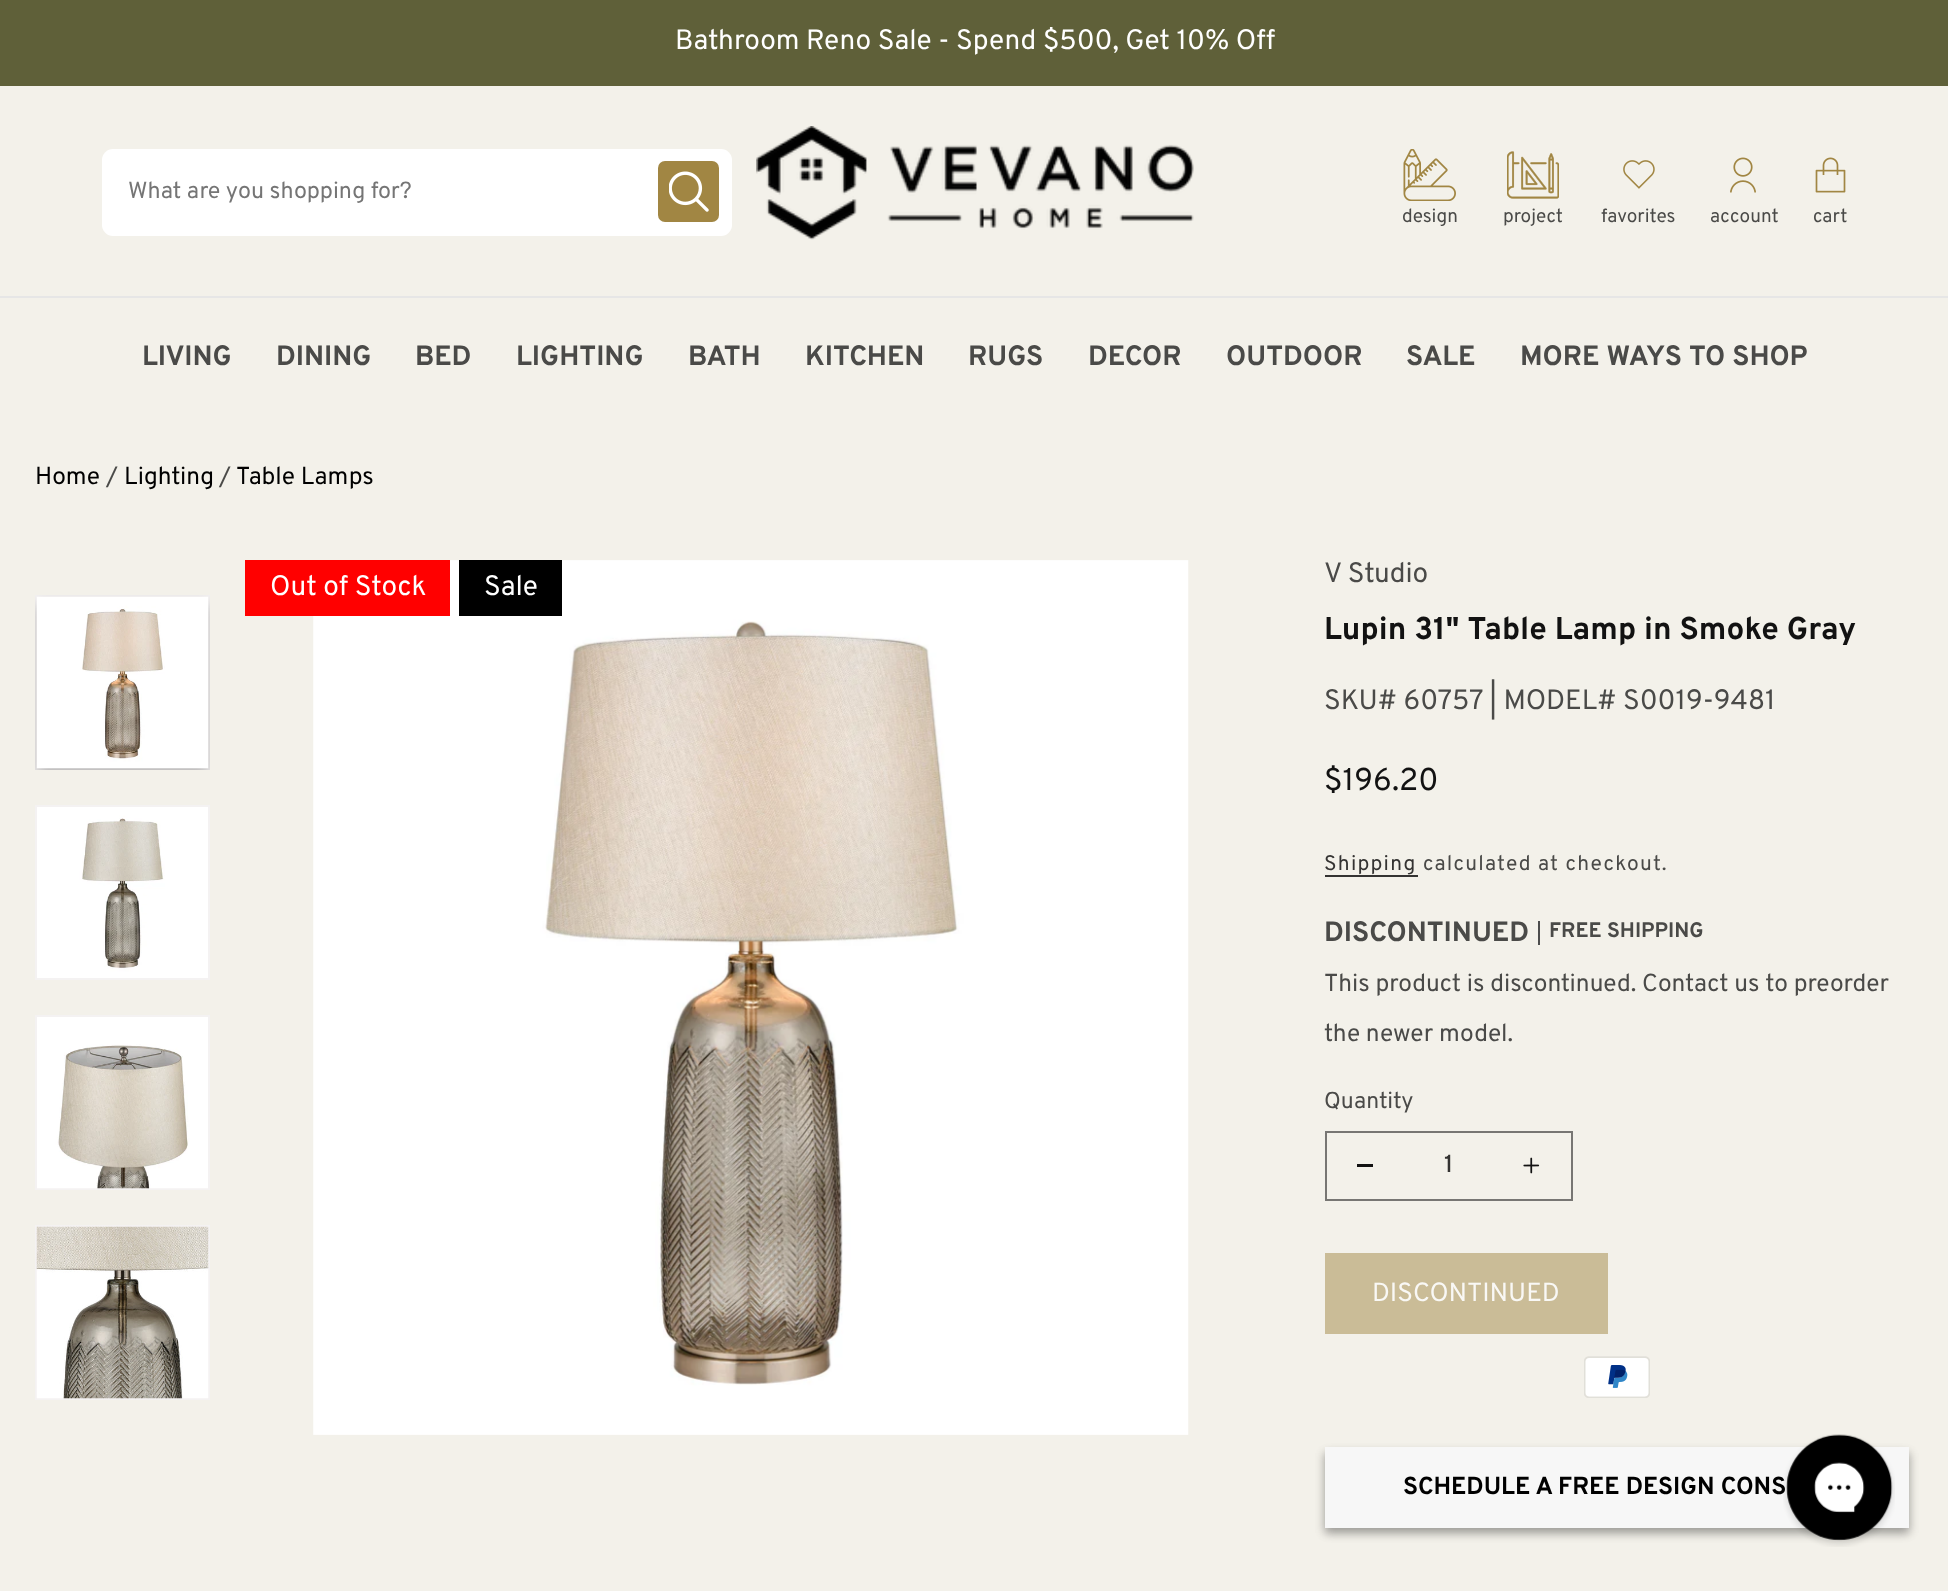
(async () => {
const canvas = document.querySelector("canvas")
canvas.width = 1948
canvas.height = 1591
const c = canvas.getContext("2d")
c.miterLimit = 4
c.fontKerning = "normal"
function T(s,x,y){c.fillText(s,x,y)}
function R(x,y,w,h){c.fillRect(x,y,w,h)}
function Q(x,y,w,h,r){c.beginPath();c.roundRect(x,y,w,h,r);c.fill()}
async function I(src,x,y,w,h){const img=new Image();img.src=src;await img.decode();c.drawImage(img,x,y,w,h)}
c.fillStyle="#f3f1ea"
R(0,0,1948,1591)
c.fillStyle="#5f6039"
R(0,0,1948,86)
c.font="28px Overpass"
c.fillStyle="#fff"
T("Bathroom Reno Sale - Spend $500, Get 10% Off",675,49)
Q(102,149,630,87,11)
c.font="23.25px Overpass"
c.fillStyle="#757575"
T("What are you shopping for?",128,198)
c.fillStyle="#a18643"
Q(658,161,61,61,7)
await I("1.png",669,171,40,41)
await I("2.png",756,126,438,114)
await I("3.png",1403,149,53,52)
c.font="19px Overpass"
c.fillStyle="#4a4a48"
T("design",1402,222)
await I("4.png",1507,151,52,48)
T("project",1503,222)
await I("5.png",1623,160,32,29)
T("favorites",1601,222)
await I("6.png",1730,157,26,36)
T("account",1710,222)
await I("7.png",1815,157,31,36)
T("cart",1813,222)
c.fillStyle="#e6e6e6"
R(0,296,1948,2)
c.font="bold 28px Overpass"
c.fillStyle="#4a4a48"
T("LIVING",142,365)
T("DINING",276,365)
T("BED",415,365)
T("LIGHTING",516,365)
T("BATH",688,365)
T("KITCHEN",805,365)
T("RUGS",968,365)
T("DECOR",1088,365)
T("OUTDOOR",1226,365)
T("SALE",1406,365)
T("MORE WAYS TO SHOP",1520,365)
c.font="24.5px Overpass"
c.fillStyle="#000"
T("Home",35,484)
c.fillStyle="#4a4a48"
T("/",106,484)
c.fillStyle="#000"
T("Lighting",124,484)
c.fillStyle="#4a4a48"
T("/",219,484)
c.fillStyle="#000"
T("Table Lamps",236,484)
await I("8.png",313,560,876,875)
c.fillStyle="#f00"
R(245,560,205,56)
c.font="28px Overpass"
c.fillStyle="#fff"
T("Out of Stock",270,595)
c.fillStyle="#000"
R(459,560,103,56)
c.fillStyle="#fff"
T("Sale",484,595)
c.strokeStyle="#f4f2f2"
c.lineWidth=2
c.strokeRect(36,596,173,173)
await I("9.png",35,595,175,175)
c.strokeRect(36,806,173,173)
await I("10.png",37,807,171,171)
c.strokeRect(36,1016,173,173)
await I("11.png",37,1017,171,172)
c.strokeRect(36,1226,173,173)
await I("12.png",36,1226,173,173)
c.fillStyle="#4a4a48"
T("V Studio",1324,582)
c.font="bold 31.5px Overpass"
c.fillStyle="#121212"
T("Lupin 31\" Table Lamp in Smoke Gray",1324,639)
c.font="28px Overpass"
c.fillStyle="#4a4a48"
T("SKU# 60757 | MODEL# S0019-9481",1324,709)
c.font="31.5px Overpass"
c.fillStyle="#121212"
T("$196.20",1324,790)
c.letterSpacing="1.25px"
c.font="21px Overpass"
c.fillStyle="#343332"
T("Shipping",1324,870)
R(1325,875,93,2)
c.fillStyle="#4a4a48"
T("calculated at checkout.",1423,870)
c.letterSpacing="0px"
c.font="bold 28px Overpass"
T("DISCONTINUED",1324,941)
c.fillStyle="#4d4d4d"
R(1538,921,2,24)
c.font="bold 21px Overpass"
c.fillStyle="#4a4a48"
T("FREE SHIPPING",1549,937)
c.font="24.5px Overpass"
T("This product is discontinued. Contact us to preorder",1324,991)
T("the newer model.",1324,1041)
c.font="23px Overpass"
T("Quantity",1324,1108)
c.fillStyle="#121212"
R(1357,1164,16,3)
await I("13.png",1523,1157,17,17)
c.strokeStyle="#777673"
c.strokeRect(1326,1132,246,68)
c.font="500 24.5px Overpass"
c.fillStyle="#343332"
T("1",1444,1172)
c.fillStyle="#cabc97"
R(1325,1253,283,81)
c.font="26.25px Overpass"
c.fillStyle="#f9f8f5"
T("DISCONTINUED",1372,1301)
await I("14.png",1584,1356,66,42)
c.fillStyle="#0000003b"
c.filter="blur(5px)"
c.beginPath()
c.rect(1325,1453,584,80)
c.fill()
c.filter="none"
c.fillStyle="#00000029"
c.filter="blur(5px)"
c.beginPath()
c.rect(1325,1453,584,80)
c.fill()
c.filter="none"
c.fillStyle="#f7f7f7"
R(1325,1447,584,81)
c.font="bold 24.5px Overpass"
c.fillStyle="#000"
T("SCHEDULE A FREE DESIGN CONS",1403,1494)
await I("15.png",1783,1434,112,113)
})()
